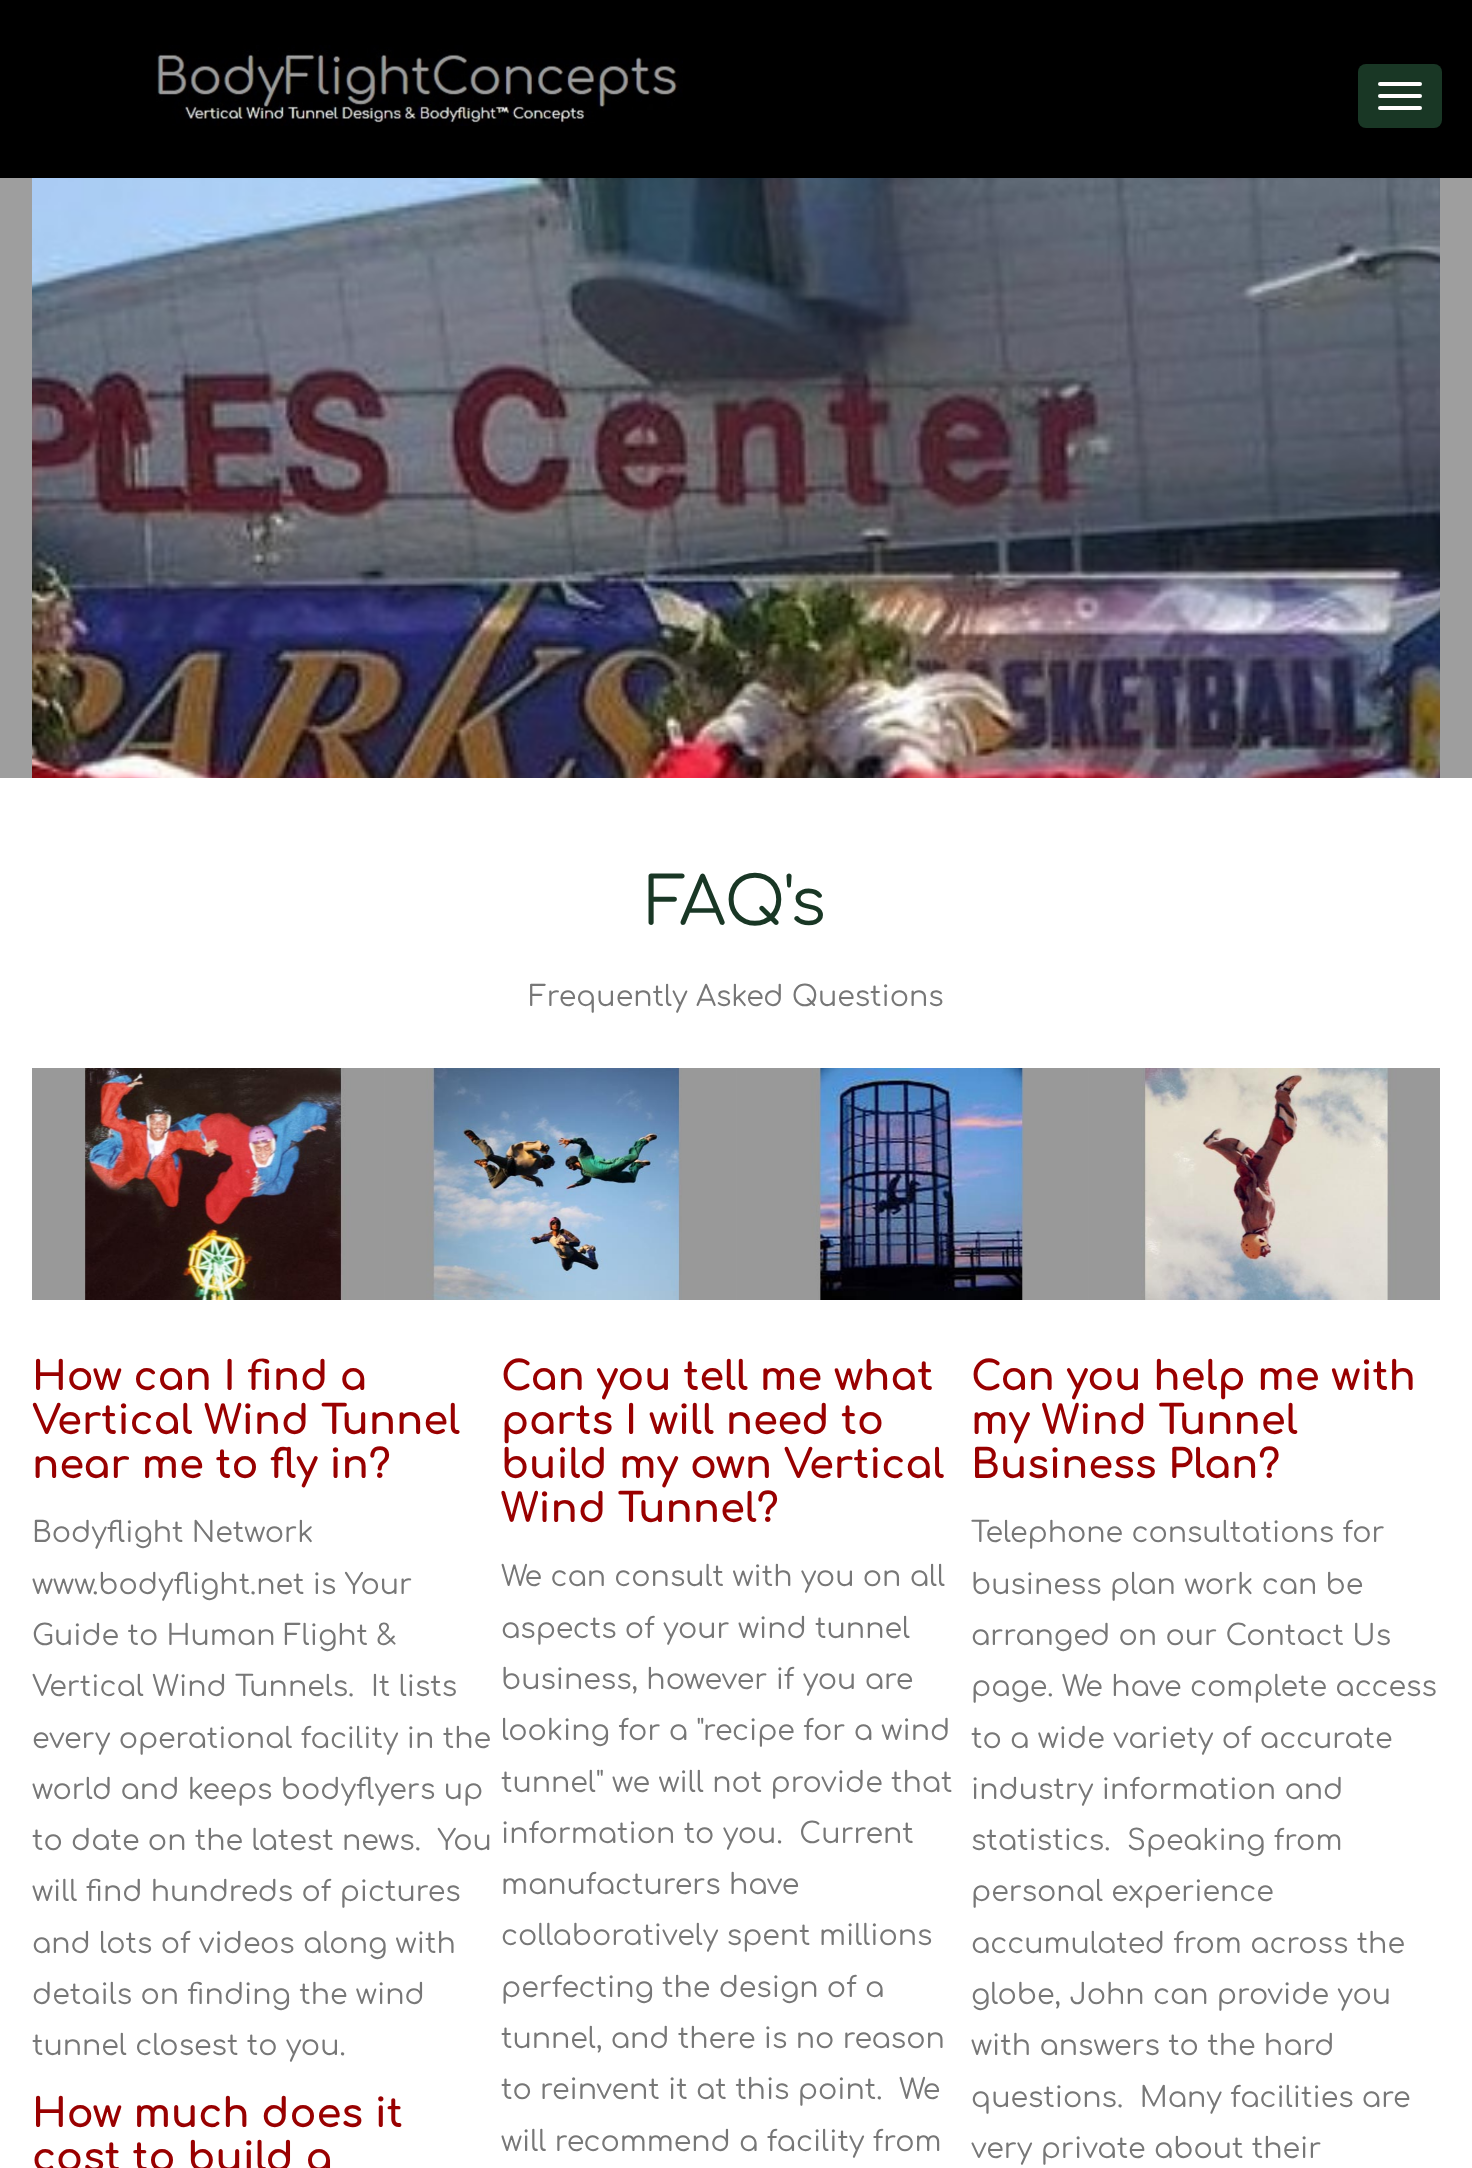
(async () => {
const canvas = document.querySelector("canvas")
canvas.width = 1472
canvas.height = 2168
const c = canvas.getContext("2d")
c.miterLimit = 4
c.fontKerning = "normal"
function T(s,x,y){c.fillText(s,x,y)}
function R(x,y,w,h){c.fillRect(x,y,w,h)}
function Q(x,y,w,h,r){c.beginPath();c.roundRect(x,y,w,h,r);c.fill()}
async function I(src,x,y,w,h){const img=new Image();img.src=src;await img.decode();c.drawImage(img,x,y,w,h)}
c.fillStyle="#fff"
R(0,0,1472,2168)
c.fillStyle="#000"
R(0,0,1472,178)
await I("1.png",156,45,527,81)
c.fillStyle="#193725"
Q(1358,64,84,64,8)
c.fillStyle="#fff"
Q(1378,82,44,4,2)
Q(1378,94,44,4,2)
Q(1378,106,44,4,2)
c.fillStyle="#9e9e9e"
R(0,178,1472,600)
await I("2.png",32,178,1408,600)
c.font="66px Comfortaa"
c.fillStyle="#193725"
T("FAQ's",646,925)
c.font="28.5px Comfortaa"
c.fillStyle="#777"
T("Frequently Asked Questions",529,1006)
await I("3.png",32,1068,352,232)
await I("4.png",384,1068,352,232)
await I("5.png",736,1068,352,232)
await I("6.png",1088,1068,352,232)
c.font="bold 40px Comfortaa"
c.fillStyle="#900"
T("How can I find a",32,1390)
T("Vertical Wind Tunnel",32,1434)
T("near me to fly in?",32,1478)
c.font="28.5px Comfortaa"
c.fillStyle="#777"
T("Bodyflight Network",32,1542)
T("www.bodyflight.net is Your",32,1594)
T("Guide to Human Flight &",32,1645)
T("Vertical Wind Tunnels.  It lists",32,1696)
T("every operational facility in the",32,1748)
T("world and keeps bodyflyers up",32,1799)
T("to date on the latest news.  You",32,1850)
T("will find hundreds of pictures",32,1901)
T("and lots of videos along with",32,1953)
T("details on finding the wind",32,2004)
T("tunnel closest to you.",32,2055)
c.font="bold 40px Comfortaa"
c.fillStyle="#900"
T("How much does it",32,2127)
T("cost to build a",32,2171)
T("Can you tell me what",501,1390)
T("parts I will need to",501,1434)
T("build my own Vertical",501,1478)
T("Wind Tunnel?",501,1522)
c.font="28.5px Comfortaa"
c.fillStyle="#777"
T("We can consult with you on all",501,1586)
T("aspects of your wind tunnel",501,1638)
T("business, however if you are",501,1689)
T("looking for a \"recipe for a wind",501,1740)
T("tunnel\" we will not provide that",501,1792)
T("information to you.  Current",501,1843)
T("manufacturers have",501,1894)
T("collaboratively spent millions",501,1945)
T("perfecting the design of a",501,1997)
T("tunnel, and there is no reason",501,2048)
T("to reinvent it at this point.  We",501,2099)
T("will recommend a facility from",501,2151)
c.font="bold 40px Comfortaa"
c.fillStyle="#900"
T("Can you help me with",971,1390)
T("my Wind Tunnel",971,1434)
T("Business Plan?",971,1478)
c.font="28.5px Comfortaa"
c.fillStyle="#777"
T("Telephone consultations for",971,1542)
T("business plan work can be",971,1594)
T("arranged on our Contact Us",971,1645)
T("page. We have complete access",971,1696)
T("to a wide variety of accurate",971,1748)
T("industry information and",971,1799)
T("statistics.  Speaking from",971,1850)
T("personal experience",971,1901)
T("accumulated from across the",971,1953)
T("globe, John can provide you",971,2004)
T("with answers to the hard",971,2055)
T("questions.  Many facilities are",971,2107)
T("very private about their",971,2158)
})()
